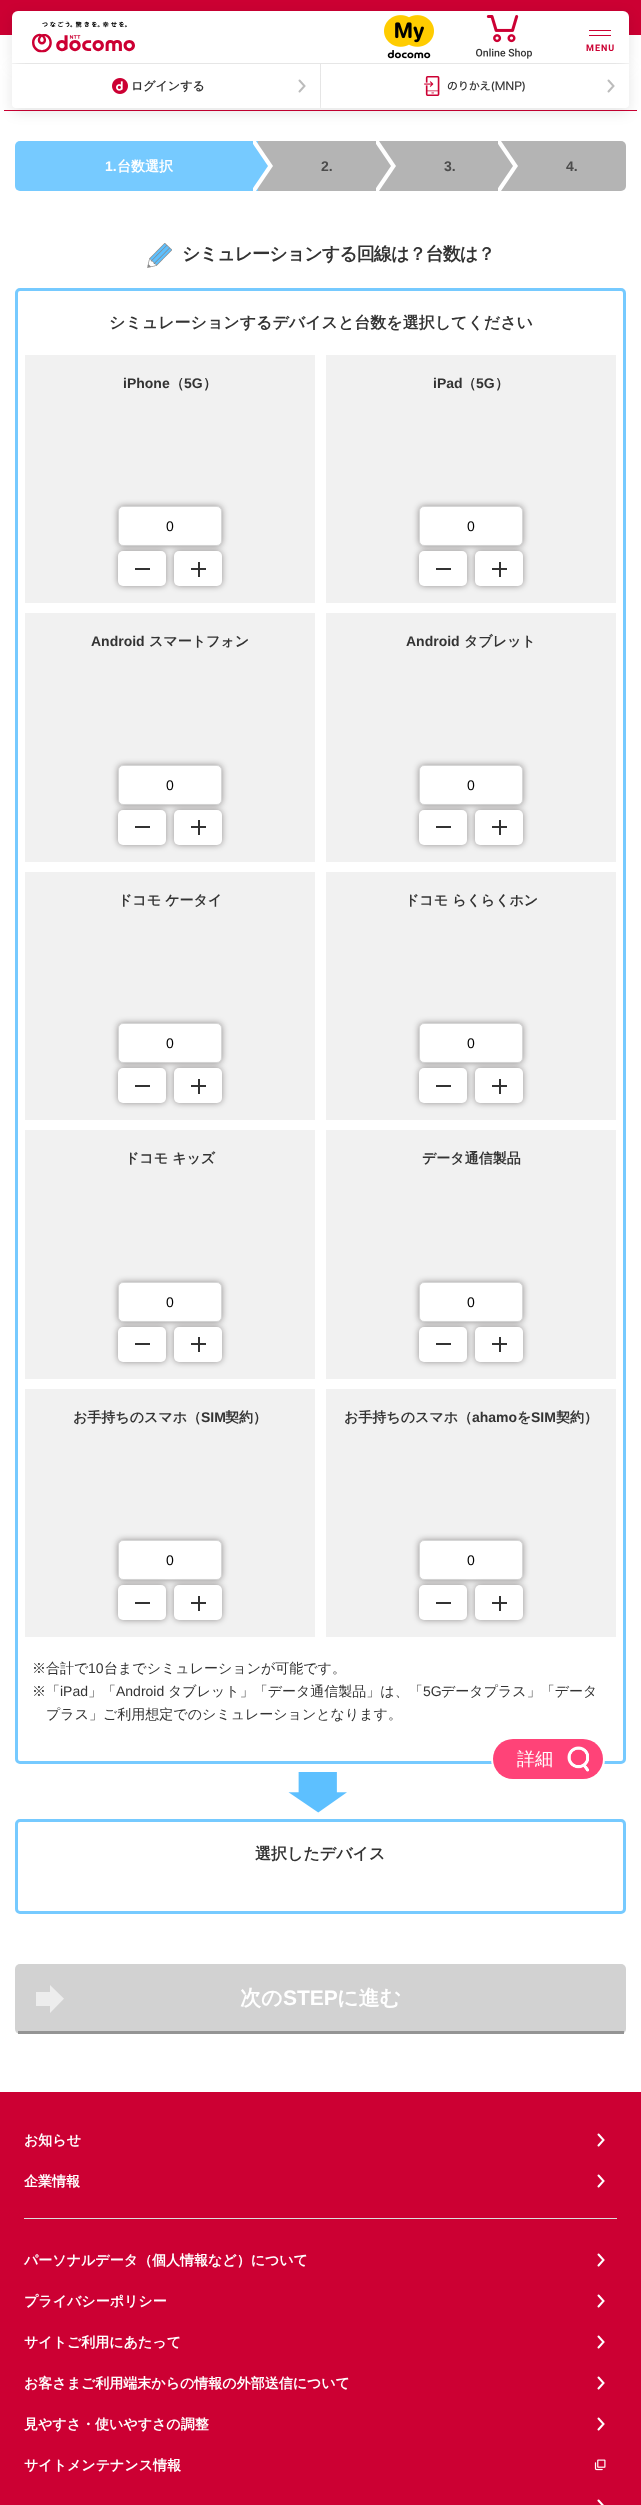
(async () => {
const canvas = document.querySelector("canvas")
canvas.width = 641
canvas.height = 2505
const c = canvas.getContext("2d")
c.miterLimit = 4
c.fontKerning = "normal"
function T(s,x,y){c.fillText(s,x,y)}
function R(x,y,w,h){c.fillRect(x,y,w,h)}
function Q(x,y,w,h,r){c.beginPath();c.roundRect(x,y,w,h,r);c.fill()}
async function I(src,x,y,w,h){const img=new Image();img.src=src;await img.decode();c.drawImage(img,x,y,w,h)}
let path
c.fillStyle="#fff"
R(0,0,641,2505)
c.fillStyle="#c03"
R(0,0,641,35)
c.fillStyle="#0000001a"
c.filter="blur(7px)"
c.beginPath()
c.roundRect(12,15,617,52,6)
c.fill()
c.filter="none"
c.fillStyle="#c03"
R(4,110,633,1)
c.fillStyle="#0000001a"
c.filter="blur(7px)"
c.beginPath()
c.roundRect(12,68,617,44,4)
c.fill()
c.filter="none"
c.fillStyle="#fff"
c.beginPath()
c.roundRect(12,11,617,52,[6,6,0,0])
c.fill()
await I("1.png",32,21,103,32)
await I("2.png",384,15,50,44)
await I("3.png",476,15,56,44)
c.fillStyle="#c03"
R(589,30,22,1)
R(589,35,22,1)
c.letterSpacing="1px"
c.font="bold 9px Roboto"
T("MENU",586,51)
c.fillStyle="#fff"
c.beginPath()
c.roundRect(12,64,308,44,[0,0,0,4])
c.fill()
await I("4.png",112,78,16,16)
c.letterSpacing="0px"
c.font="bold 12px WenQuanYi Zen Hei"
c.fillStyle="#333"
T("ログインする",131,90)
path = new Path2D("M299.5 80.5l5 5.5l-5 5.5")
c.strokeStyle="#bcbcbc"
c.lineWidth=2
c.lineCap="round"
c.stroke(path)
c.fillStyle="#fff"
c.beginPath()
c.roundRect(321,64,308,44,[0,0,4,0])
c.fill()
await I("5.png",424,76,101,20)
path = new Path2D("M608.5 80.5l5 5.5l-5 5.5")
c.stroke(path)
c.fillStyle="#76caff"
c.beginPath()
c.roundRect(15,141,243,50,[5,0,0,5])
c.fill()
c.fillStyle="#b4b4b4"
R(258,141,245,50)
c.fillStyle="#fff"
path = new Path2D("M256 141l17 25l-17 25h-3v-50z")
c.fill(path)
c.fillStyle="#76caff"
path = new Path2D("M251 141l17 25l-17 25h-3v-50z")
c.fill(path)
c.font="bold 14px Liberation Sans"
c.fillStyle="#fff"
T("1.",105,171)
c.font="bold 14px WenQuanYi Zen Hei"
T("台数選択",117,171)
path = new Path2D("M379 141l17 25l-17 25h-3v-50z")
c.fill(path)
c.fillStyle="#b4b4b4"
path = new Path2D("M374 141l17 25l-17 25h-3v-50z")
c.fill(path)
c.font="bold 14px Liberation Sans"
c.fillStyle="#4c4c4c"
T("2.",321,171)
c.fillStyle="#b4b4b4"
c.beginPath()
c.roundRect(503,141,123,50,[0,5,5,0])
c.fill()
c.fillStyle="#fff"
path = new Path2D("M501 141l17 25l-17 25h-3v-50z")
c.fill(path)
c.fillStyle="#b4b4b4"
path = new Path2D("M496 141l17 25l-17 25h-3v-50z")
c.fill(path)
c.fillStyle="#4c4c4c"
T("3.",444,171)
T("4.",566,171)
await I("6.png",147,243,25,25)
c.letterSpacing="-1px"
c.font="bold 18.1px WenQuanYi Zen Hei"
c.fillStyle="#333"
T("シミュレーションする回線は？台数は？",182,260)
c.beginPath()
c.roundRect(16.5,289.5,608,1473,3.5)
c.strokeStyle="#76caff"
c.lineWidth=3
c.stroke()
c.letterSpacing="0px"
c.font="bold 16px WenQuanYi Zen Hei"
T("シミュレーションするデバイスと台数を選択してください",109,328)
c.fillStyle="#f1f1f1"
R(42,372,256,214)
path = new Path2D("M33.5 363.5h273v231h-273z")
c.strokeStyle="#f1f1f1"
c.lineWidth=17
c.lineCap="butt"
c.stroke(path)
c.font="bold 14px Liberation Sans"
c.fillStyle="#333"
T("iPhone",123,388)
c.font="bold 14px WenQuanYi Zen Hei"
T("（",170,388)
c.font="bold 14px Liberation Sans"
T("5G",184,388)
c.font="bold 14px WenQuanYi Zen Hei"
T("）",203,388)
c.fillStyle="#07010266"
c.filter="blur(3px)"
c.beginPath()
c.roundRect(118,506,104,40,5)
c.fill()
c.filter="none"
c.fillStyle="#fff"
c.beginPath()
c.roundRect(118.5,506.5,103,39,4.5)
c.fill()
c.strokeStyle="#d6d6d6"
c.lineWidth=1
c.stroke()
c.font="14px Liberation Sans"
c.fillStyle="#000"
T("0",166,531)
c.fillStyle="#07010266"
c.filter="blur(3px)"
c.beginPath()
c.roundRect(118,551,48,35,5)
c.fill()
c.filter="none"
c.fillStyle="#fff"
Q(118,551,48,35,5)
c.fillStyle="#333"
R(135,568,15,2)
c.fillStyle="#07010266"
c.filter="blur(3px)"
c.beginPath()
c.roundRect(174,551,48,35,5)
c.fill()
c.filter="none"
c.fillStyle="#fff"
Q(174,551,48,35,5)
c.fillStyle="#333"
R(191,568,15,2)
R(198,562,2,15)
c.fillStyle="#f1f1f1"
R(343,372,256,214)
path = new Path2D("M334.5 363.5h273v231h-273z")
c.strokeStyle="#f1f1f1"
c.lineWidth=17
c.stroke(path)
c.font="bold 14px Liberation Sans"
c.fillStyle="#333"
T("iPad",433,388)
c.font="bold 14px WenQuanYi Zen Hei"
T("（",462,388)
c.font="bold 14px Liberation Sans"
T("5G",476,388)
c.font="bold 14px WenQuanYi Zen Hei"
T("）",495,388)
c.fillStyle="#07010266"
c.filter="blur(3px)"
c.beginPath()
c.roundRect(419,506,104,40,5)
c.fill()
c.filter="none"
c.fillStyle="#fff"
c.beginPath()
c.roundRect(419.5,506.5,103,39,4.5)
c.fill()
c.strokeStyle="#d6d6d6"
c.lineWidth=1
c.stroke()
c.font="14px Liberation Sans"
c.fillStyle="#000"
T("0",467,531)
c.fillStyle="#07010266"
c.filter="blur(3px)"
c.beginPath()
c.roundRect(419,551,48,35,5)
c.fill()
c.filter="none"
c.fillStyle="#fff"
Q(419,551,48,35,5)
c.fillStyle="#333"
R(436,568,15,2)
c.fillStyle="#07010266"
c.filter="blur(3px)"
c.beginPath()
c.roundRect(475,551,48,35,5)
c.fill()
c.filter="none"
c.fillStyle="#fff"
Q(475,551,48,35,5)
c.fillStyle="#333"
R(492,568,15,2)
R(499,562,2,15)
c.fillStyle="#f1f1f1"
R(42,630,256,215)
path = new Path2D("M33.5 621.5h273v232h-273z")
c.strokeStyle="#f1f1f1"
c.lineWidth=17
c.stroke(path)
c.font="bold 14px Liberation Sans"
c.fillStyle="#333"
T("Android",91,646)
c.font="bold 14px WenQuanYi Zen Hei"
T("スマートフォン",149,646)
c.fillStyle="#07010266"
c.filter="blur(3px)"
c.beginPath()
c.roundRect(118,765,104,40,5)
c.fill()
c.filter="none"
c.fillStyle="#fff"
c.beginPath()
c.roundRect(118.5,765.5,103,39,4.5)
c.fill()
c.strokeStyle="#d6d6d6"
c.lineWidth=1
c.stroke()
c.font="14px Liberation Sans"
c.fillStyle="#000"
T("0",166,790)
c.fillStyle="#07010266"
c.filter="blur(3px)"
c.beginPath()
c.roundRect(118,810,48,35,5)
c.fill()
c.filter="none"
c.fillStyle="#fff"
Q(118,810,48,35,5)
c.fillStyle="#333"
R(135,826,15,2)
c.fillStyle="#07010266"
c.filter="blur(3px)"
c.beginPath()
c.roundRect(174,810,48,35,5)
c.fill()
c.filter="none"
c.fillStyle="#fff"
Q(174,810,48,35,5)
c.fillStyle="#333"
R(191,826,15,2)
R(198,820,2,15)
c.fillStyle="#f1f1f1"
R(343,630,256,215)
path = new Path2D("M334.5 621.5h273v232h-273z")
c.strokeStyle="#f1f1f1"
c.lineWidth=17
c.stroke(path)
c.font="bold 14px Liberation Sans"
c.fillStyle="#333"
T("Android",406,646)
c.font="bold 14px WenQuanYi Zen Hei"
T("タブレット",464,646)
c.fillStyle="#07010266"
c.filter="blur(3px)"
c.beginPath()
c.roundRect(419,765,104,40,5)
c.fill()
c.filter="none"
c.fillStyle="#fff"
c.beginPath()
c.roundRect(419.5,765.5,103,39,4.5)
c.fill()
c.strokeStyle="#d6d6d6"
c.lineWidth=1
c.stroke()
c.font="14px Liberation Sans"
c.fillStyle="#000"
T("0",467,790)
c.fillStyle="#07010266"
c.filter="blur(3px)"
c.beginPath()
c.roundRect(419,810,48,35,5)
c.fill()
c.filter="none"
c.fillStyle="#fff"
Q(419,810,48,35,5)
c.fillStyle="#333"
R(436,826,15,2)
c.fillStyle="#07010266"
c.filter="blur(3px)"
c.beginPath()
c.roundRect(475,810,48,35,5)
c.fill()
c.filter="none"
c.fillStyle="#fff"
Q(475,810,48,35,5)
c.fillStyle="#333"
R(492,826,15,2)
R(499,820,2,15)
c.fillStyle="#f1f1f1"
R(42,889,256,214)
path = new Path2D("M33.5 880.5h273v231h-273z")
c.strokeStyle="#f1f1f1"
c.lineWidth=17
c.stroke(path)
c.font="bold 14px WenQuanYi Zen Hei"
c.fillStyle="#333"
T("ドコモ ケータイ",118,905)
c.fillStyle="#07010266"
c.filter="blur(3px)"
c.beginPath()
c.roundRect(118,1023,104,40,5)
c.fill()
c.filter="none"
c.fillStyle="#fff"
c.beginPath()
c.roundRect(118.5,1023.5,103,39,4.5)
c.fill()
c.strokeStyle="#d6d6d6"
c.lineWidth=1
c.stroke()
c.font="14px Liberation Sans"
c.fillStyle="#000"
T("0",166,1048)
c.fillStyle="#07010266"
c.filter="blur(3px)"
c.beginPath()
c.roundRect(118,1068,48,35,5)
c.fill()
c.filter="none"
c.fillStyle="#fff"
Q(118,1068,48,35,5)
c.fillStyle="#333"
R(135,1085,15,2)
c.fillStyle="#07010266"
c.filter="blur(3px)"
c.beginPath()
c.roundRect(174,1068,48,35,5)
c.fill()
c.filter="none"
c.fillStyle="#fff"
Q(174,1068,48,35,5)
c.fillStyle="#333"
R(191,1085,15,2)
R(198,1079,2,15)
c.fillStyle="#f1f1f1"
R(343,889,256,214)
path = new Path2D("M334.5 880.5h273v231h-273z")
c.strokeStyle="#f1f1f1"
c.lineWidth=17
c.stroke(path)
c.font="bold 14px WenQuanYi Zen Hei"
c.fillStyle="#333"
T("ドコモ らくらくホン",405,905)
c.fillStyle="#07010266"
c.filter="blur(3px)"
c.beginPath()
c.roundRect(419,1023,104,40,5)
c.fill()
c.filter="none"
c.fillStyle="#fff"
c.beginPath()
c.roundRect(419.5,1023.5,103,39,4.5)
c.fill()
c.strokeStyle="#d6d6d6"
c.lineWidth=1
c.stroke()
c.font="14px Liberation Sans"
c.fillStyle="#000"
T("0",467,1048)
c.fillStyle="#07010266"
c.filter="blur(3px)"
c.beginPath()
c.roundRect(419,1068,48,35,5)
c.fill()
c.filter="none"
c.fillStyle="#fff"
Q(419,1068,48,35,5)
c.fillStyle="#333"
R(436,1085,15,2)
c.fillStyle="#07010266"
c.filter="blur(3px)"
c.beginPath()
c.roundRect(475,1068,48,35,5)
c.fill()
c.filter="none"
c.fillStyle="#fff"
Q(475,1068,48,35,5)
c.fillStyle="#333"
R(492,1085,15,2)
R(499,1079,2,15)
c.fillStyle="#f1f1f1"
R(42,1147,256,215)
path = new Path2D("M33.5 1138.5h273v232h-273z")
c.strokeStyle="#f1f1f1"
c.lineWidth=17
c.stroke(path)
c.font="bold 14px WenQuanYi Zen Hei"
c.fillStyle="#333"
T("ドコモ キッズ",125,1163)
c.fillStyle="#07010266"
c.filter="blur(3px)"
c.beginPath()
c.roundRect(118,1282,104,40,5)
c.fill()
c.filter="none"
c.fillStyle="#fff"
c.beginPath()
c.roundRect(118.5,1282.5,103,39,4.5)
c.fill()
c.strokeStyle="#d6d6d6"
c.lineWidth=1
c.stroke()
c.font="14px Liberation Sans"
c.fillStyle="#000"
T("0",166,1307)
c.fillStyle="#07010266"
c.filter="blur(3px)"
c.beginPath()
c.roundRect(118,1327,48,35,5)
c.fill()
c.filter="none"
c.fillStyle="#fff"
Q(118,1327,48,35,5)
c.fillStyle="#333"
R(135,1343,15,2)
c.fillStyle="#07010266"
c.filter="blur(3px)"
c.beginPath()
c.roundRect(174,1327,48,35,5)
c.fill()
c.filter="none"
c.fillStyle="#fff"
Q(174,1327,48,35,5)
c.fillStyle="#333"
R(191,1343,15,2)
R(198,1337,2,15)
c.fillStyle="#f1f1f1"
R(343,1147,256,215)
path = new Path2D("M334.5 1138.5h273v232h-273z")
c.strokeStyle="#f1f1f1"
c.lineWidth=17
c.stroke(path)
c.font="bold 14px WenQuanYi Zen Hei"
c.fillStyle="#333"
T("データ通信製品",422,1163)
c.fillStyle="#07010266"
c.filter="blur(3px)"
c.beginPath()
c.roundRect(419,1282,104,40,5)
c.fill()
c.filter="none"
c.fillStyle="#fff"
c.beginPath()
c.roundRect(419.5,1282.5,103,39,4.5)
c.fill()
c.strokeStyle="#d6d6d6"
c.lineWidth=1
c.stroke()
c.font="14px Liberation Sans"
c.fillStyle="#000"
T("0",467,1307)
c.fillStyle="#07010266"
c.filter="blur(3px)"
c.beginPath()
c.roundRect(419,1327,48,35,5)
c.fill()
c.filter="none"
c.fillStyle="#fff"
Q(419,1327,48,35,5)
c.fillStyle="#333"
R(436,1343,15,2)
c.fillStyle="#07010266"
c.filter="blur(3px)"
c.beginPath()
c.roundRect(475,1327,48,35,5)
c.fill()
c.filter="none"
c.fillStyle="#fff"
Q(475,1327,48,35,5)
c.fillStyle="#333"
R(492,1343,15,2)
R(499,1337,2,15)
c.fillStyle="#f1f1f1"
R(42,1406,256,214)
path = new Path2D("M33.5 1397.5h273v231h-273z")
c.strokeStyle="#f1f1f1"
c.lineWidth=17
c.stroke(path)
c.font="bold 14px WenQuanYi Zen Hei"
c.fillStyle="#333"
T("お手持ちのスマホ（",73,1422)
c.font="bold 14px Liberation Sans"
T("SIM",201,1422)
c.font="bold 14px WenQuanYi Zen Hei"
T("契約）",225,1422)
c.fillStyle="#07010266"
c.filter="blur(3px)"
c.beginPath()
c.roundRect(118,1540,104,40,5)
c.fill()
c.filter="none"
c.fillStyle="#fff"
c.beginPath()
c.roundRect(118.5,1540.5,103,39,4.5)
c.fill()
c.strokeStyle="#d6d6d6"
c.lineWidth=1
c.stroke()
c.font="14px Liberation Sans"
c.fillStyle="#000"
T("0",166,1565)
c.fillStyle="#07010266"
c.filter="blur(3px)"
c.beginPath()
c.roundRect(118,1585,48,35,5)
c.fill()
c.filter="none"
c.fillStyle="#fff"
Q(118,1585,48,35,5)
c.fillStyle="#333"
R(135,1602,15,2)
c.fillStyle="#07010266"
c.filter="blur(3px)"
c.beginPath()
c.roundRect(174,1585,48,35,5)
c.fill()
c.filter="none"
c.fillStyle="#fff"
Q(174,1585,48,35,5)
c.fillStyle="#333"
R(191,1602,15,2)
R(198,1596,2,15)
c.fillStyle="#f1f1f1"
R(343,1406,256,214)
path = new Path2D("M334.5 1397.5h273v231h-273z")
c.strokeStyle="#f1f1f1"
c.lineWidth=17
c.stroke(path)
c.font="bold 14px WenQuanYi Zen Hei"
c.fillStyle="#333"
T("お手持ちのスマホ（",344,1422)
c.font="bold 14px Liberation Sans"
T("ahamo",472,1422)
c.font="bold 14px WenQuanYi Zen Hei"
T("を",517,1422)
c.font="bold 14px Liberation Sans"
T("SIM",531,1422)
c.font="bold 14px WenQuanYi Zen Hei"
T("契約）",556,1422)
c.fillStyle="#07010266"
c.filter="blur(3px)"
c.beginPath()
c.roundRect(419,1540,104,40,5)
c.fill()
c.filter="none"
c.fillStyle="#fff"
c.beginPath()
c.roundRect(419.5,1540.5,103,39,4.5)
c.fill()
c.strokeStyle="#d6d6d6"
c.lineWidth=1
c.stroke()
c.font="14px Liberation Sans"
c.fillStyle="#000"
T("0",467,1565)
c.fillStyle="#07010266"
c.filter="blur(3px)"
c.beginPath()
c.roundRect(419,1585,48,35,5)
c.fill()
c.filter="none"
c.fillStyle="#fff"
Q(419,1585,48,35,5)
c.fillStyle="#333"
R(436,1602,15,2)
c.fillStyle="#07010266"
c.filter="blur(3px)"
c.beginPath()
c.roundRect(475,1585,48,35,5)
c.fill()
c.filter="none"
c.fillStyle="#fff"
Q(475,1585,48,35,5)
c.fillStyle="#333"
R(492,1602,15,2)
R(499,1596,2,15)
c.font="500 14px WenQuanYi Zen Hei"
T("※合計で",32,1673)
c.font="14px Liberation Sans"
T("10",88,1673)
c.font="500 14px WenQuanYi Zen Hei"
T("台までシミュレーションが可能です。",104,1673)
T("※「",32,1696)
c.font="14px Liberation Sans"
T("iPad",60,1696)
c.font="500 14px WenQuanYi Zen Hei"
T("」「",88,1696)
c.font="14px Liberation Sans"
T("Android",116,1696)
c.font="500 14px WenQuanYi Zen Hei"
T("タブレット」「データ通信製品」は、「",168,1696)
c.font="14px Liberation Sans"
T("5G",423,1696)
c.font="500 14px WenQuanYi Zen Hei"
T("データプラス」「データ",441,1696)
T("プラス」ご利用想定でのシミュレーションとなります。",46,1719)
c.fillStyle="#fff"
Q(491,1737,114,44,22)
c.fillStyle="#ff4378"
Q(493,1739,110,40,20)
c.font="500 18.1px WenQuanYi Zen Hei"
c.fillStyle="#fff"
T("詳細",517,1765)
await I("7.png",567,1746,22,26)
c.beginPath()
c.roundRect(16.5,1820.5,608,92,3.5)
c.strokeStyle="#76caff"
c.lineWidth=3
c.stroke()
await I("8.png",288,1772,59,41)
c.font="bold 16px WenQuanYi Zen Hei"
c.fillStyle="#333"
T("選択したデバイス",255,1859)
c.fillStyle="#d2d2d2"
Q(15,1964,611,70,5)
c.fillStyle="#949494"
R(18,2031,606,3)
await I("9.png",36,1985,28,28)
c.font="bold 21px WenQuanYi Zen Hei"
c.fillStyle="#fff"
T("次の",240,2005)
c.font="bold 21px Liberation Sans"
T("STEP",283,2005)
c.font="bold 21px WenQuanYi Zen Hei"
T("に進む",337,2005)
c.fillStyle="#c03"
R(0,2092,641,413)
c.font="bold 14px WenQuanYi Zen Hei"
c.fillStyle="#fff"
T("お知らせ",24,2145)
path = new Path2D("M598.5 2134.5l5 5.5l-5 5.5")
c.strokeStyle="#fff"
c.lineWidth=2
c.lineCap="round"
c.stroke(path)
T("企業情報",24,2186)
path = new Path2D("M598.5 2175.5l5 5.5l-5 5.5")
c.stroke(path)
c.fillStyle="#ddd"
R(24,2218,593,1)
c.fillStyle="#fff"
T("パーソナルデータ（個人情報など）について",24,2265)
path = new Path2D("M598.5 2254.5l5 5.5l-5 5.5")
c.stroke(path)
T("プライバシーポリシー",24,2306)
path = new Path2D("M598.5 2295.5l5 5.5l-5 5.5")
c.stroke(path)
T("サイトご利用にあたって",24,2347)
path = new Path2D("M598.5 2336.5l5 5.5l-5 5.5")
c.stroke(path)
T("お客さまご利用端末からの情報の外部送信について",24,2388)
path = new Path2D("M598.5 2377.5l5 5.5l-5 5.5")
c.stroke(path)
T("見やすさ・使いやすさの調整",24,2429)
path = new Path2D("M598.5 2418.5l5 5.5l-5 5.5")
c.stroke(path)
T("サイトメンテナンス情報",24,2470)
await I("10.png",594,2459,12,12)
path = new Path2D("M598.5 2500.5l5 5.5l-5 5.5")
c.stroke(path)
})()
